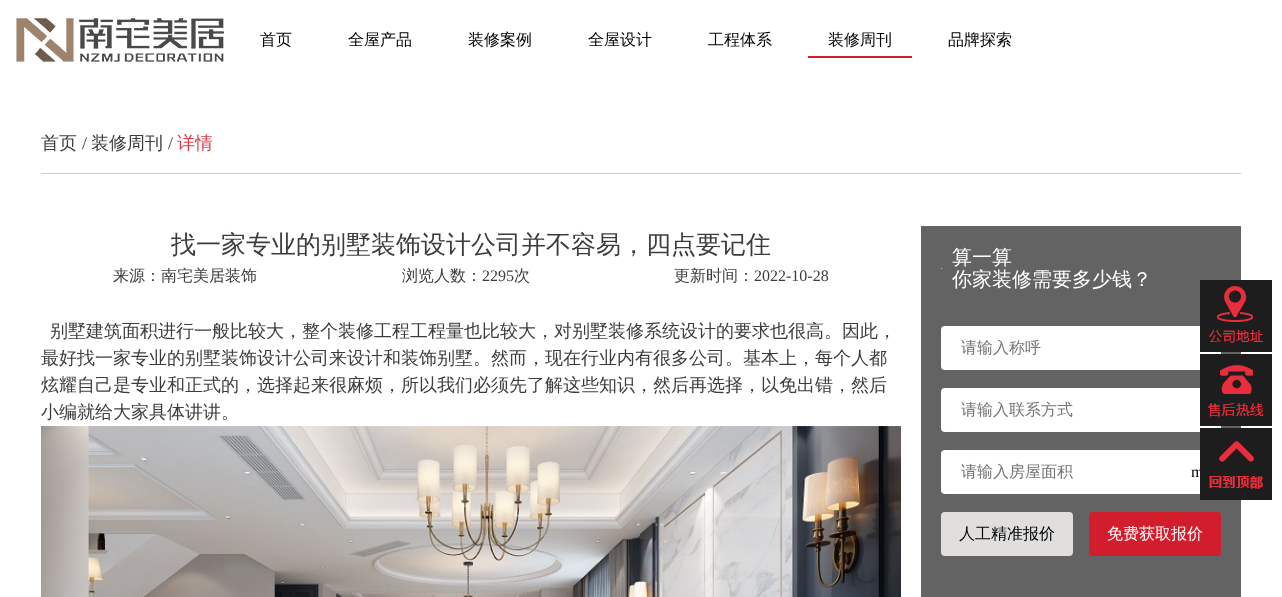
(async () => {
const canvas = document.querySelector("canvas")
canvas.width = 1282
canvas.height = 597
const c = canvas.getContext("2d")
c.miterLimit = 4
c.fontKerning = "normal"
function T(s,x,y){c.fillText(s,x,y)}
function R(x,y,w,h){c.fillRect(x,y,w,h)}
function Q(x,y,w,h,r){c.beginPath();c.roundRect(x,y,w,h,r);c.fill()}
async function I(src,x,y,w,h){const img=new Image();img.src=src;await img.decode();c.drawImage(img,x,y,w,h)}
c.fillStyle="#fff"
R(0,0,1282,597)
await I("1.png",16,18,208,44)
c.font="500 16px WenQuanYi Zen Hei"
c.fillStyle="#000"
T("首页",260,45)
T("全屋产品",348,45)
T("装修案例",468,45)
T("全屋设计",588,45)
T("工程体系",708,45)
T("装修周刊",828,45)
c.fillStyle="#d21d2c"
R(808,56,104,2)
c.fillStyle="#000"
T("品牌探索",948,45)
c.fillStyle="#ccc"
R(41,173,1200,1)
c.font="500 18px WenQuanYi Zen Hei"
c.fillStyle="#3c3c3c"
T("首页",41,149)
c.font="18px Liberation Serif"
T("/",82,149)
c.font="500 18px WenQuanYi Zen Hei"
T("装修周刊",91,149)
c.font="18px Liberation Serif"
T("/",168,149)
c.font="500 18px WenQuanYi Zen Hei"
c.fillStyle="#d83b48"
T("详情",177,149)
c.font="500 25px WenQuanYi Zen Hei"
c.fillStyle="#3c3c3c"
T("找一家专业的别墅装饰设计公司并不容易，四点要记住",171,253)
c.font="500 16px WenQuanYi Zen Hei"
T("来源：南宅美居装饰",113,281)
T("浏览人数：",402,281)
c.font="16px Liberation Serif"
T("2295",482,281)
c.font="500 16px WenQuanYi Zen Hei"
T("次",514,281)
T("更新时间：",674,281)
c.font="16px Liberation Serif"
T("2022-10-28",754,281)
c.font="500 18px WenQuanYi Zen Hei"
T("别墅建筑面积进行一般比较大，整个装修工程工程量也比较大，对别墅装修系统设计的要求也很高。因此，",50,337)
T("最好找一家专业的别墅装饰设计公司来设计和装饰别墅。然而，现在行业内有很多公司。基本上，每个人都",41,364)
T("炫耀自己是专业和正式的，选择起来很麻烦，所以我们必须先了解这些知识，然后再选择，以免出错，然后",41,391)
T("小编就给大家具体讲讲。",41,418)
await I("2.png",41,426,860,171)
c.fillStyle="#636363"
R(921,226,320,371)
c.fillStyle="#c3c3c3"
R(941,268,1,1)
c.font="500 20px WenQuanYi Zen Hei"
c.fillStyle="#fff"
T("算一算",952,264)
T("你家装修需要多少钱？",952,286)
Q(941,326,280,44,4)
c.font="500 16px WenQuanYi Zen Hei"
c.fillStyle="#757575"
T("请输入称呼",961,353)
c.fillStyle="#fff"
Q(941,388,280,44,4)
c.fillStyle="#757575"
T("请输入联系方式",961,415)
c.fillStyle="#fff"
Q(941,450,280,44,4)
c.fillStyle="#757575"
T("请输入房屋面积",961,477)
c.font="16px Liberation Serif"
c.fillStyle="#000"
T("m",1191,477)
c.fillStyle="#e1dede"
Q(941,512,132,44,4)
c.font="500 16px WenQuanYi Zen Hei"
c.fillStyle="#000"
T("人工精准报价",959,539)
c.fillStyle="#d21d2c"
Q(1089,512,132,44,4)
c.fillStyle="#fff"
T("免费获取报价",1107,539)
await I("3.png",1200,280,72,72)
await I("4.png",1200,354,72,72)
await I("5.png",1200,428,72,72)
})()
